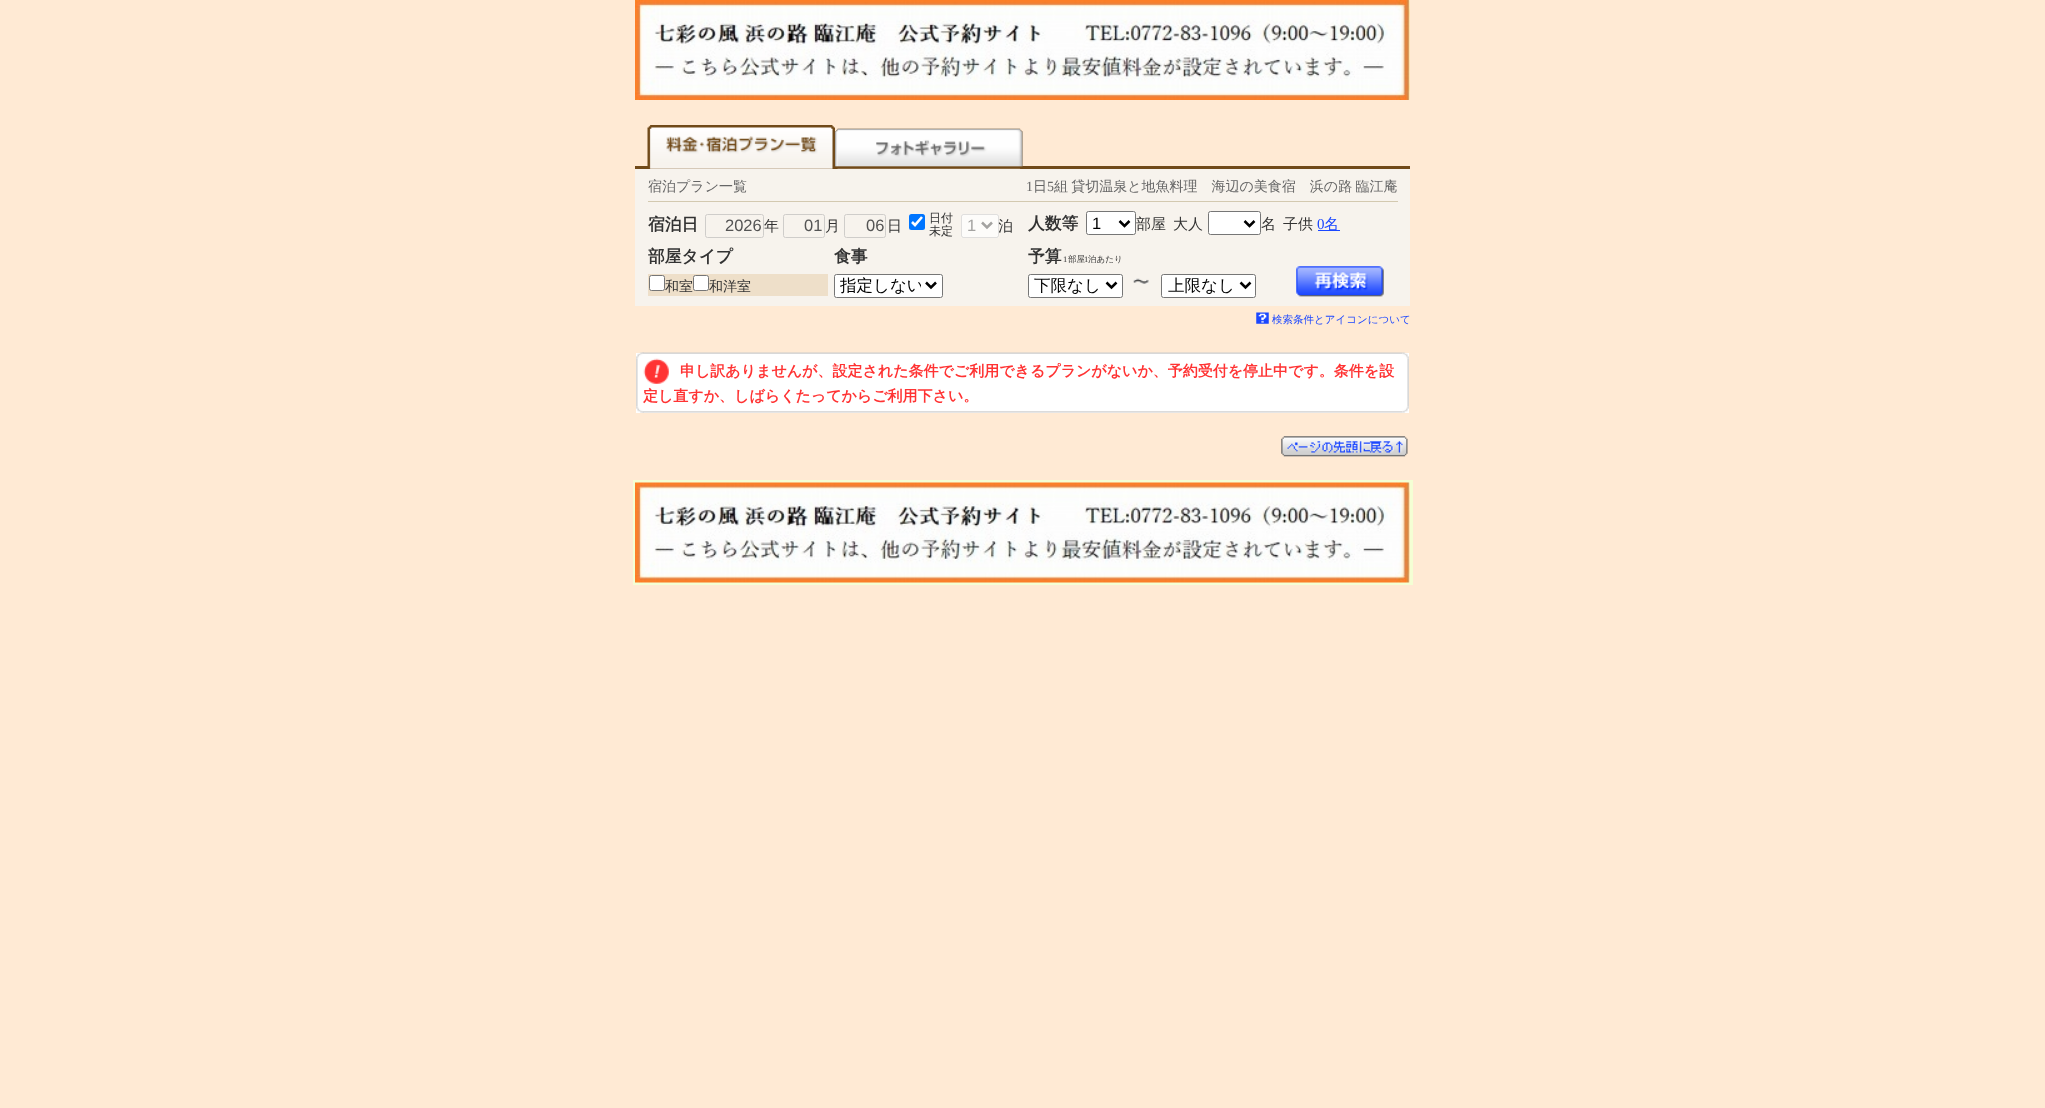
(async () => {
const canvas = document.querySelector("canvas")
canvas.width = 2045
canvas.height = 1108
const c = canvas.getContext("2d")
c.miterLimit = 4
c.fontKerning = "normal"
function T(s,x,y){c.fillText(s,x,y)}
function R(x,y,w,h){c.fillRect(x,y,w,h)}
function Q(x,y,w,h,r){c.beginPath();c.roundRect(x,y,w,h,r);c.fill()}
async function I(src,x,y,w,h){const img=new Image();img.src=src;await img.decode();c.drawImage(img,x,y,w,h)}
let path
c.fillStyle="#ffead4"
R(0,0,2045,1108)
await I("1.png",635,0,775,100)
c.fillStyle="#714a19"
R(635,166,775,3)
await I("2.png",647,125,188,44)
await I("3.png",835,128,188,41)
await I("4.png",835,128,188,41)
c.fillStyle="#f7f3ed"
R(635,169,775,137)
c.fillStyle="#d3c9b0"
R(648,201,750,1)
c.font="500 14px WenQuanYi Zen Hei"
c.fillStyle="#666"
T("宿泊プラン一覧",648,191)
c.font="14px Liberation Serif"
T("1",1026,191)
c.font="500 14px WenQuanYi Zen Hei"
T("日",1033,191)
c.font="14px Liberation Serif"
T("5",1047,191)
c.wordSpacing="-1px"
c.font="500 14px WenQuanYi Zen Hei"
T("組 貸切温泉と地魚料理　海辺の美食宿　浜の路 臨江庵",1054,191)
c.wordSpacing="0px"
c.font="bold 16.75px WenQuanYi Zen Hei"
c.fillStyle="#333"
T("宿泊日",648,230)
c.beginPath()
c.roundRect(705.5,214.5,58,23,2)
c.strokeStyle="#cfcdca"
c.stroke()
c.font="16.5px Liberation Sans"
c.fillStyle="#545454"
T("2026",725,231)
c.font="500 15px WenQuanYi Zen Hei"
c.fillStyle="#333"
T("年",764,231)
c.beginPath()
c.roundRect(783.5,214.5,41,23,2)
c.stroke()
c.font="16.5px Liberation Sans"
c.fillStyle="#545454"
T("01",804,231)
c.font="500 15px WenQuanYi Zen Hei"
c.fillStyle="#333"
T("月",825,231)
c.beginPath()
c.roundRect(844.5,214.5,41,23,2)
c.stroke()
c.font="16.5px Liberation Sans"
c.fillStyle="#545454"
T("06",866,231)
c.font="500 15px WenQuanYi Zen Hei"
c.fillStyle="#333"
T("日",887,231)
c.fillStyle="#0075ff"
Q(909,214,16,16,2.5)
path = new Path2D("M912 222l3 3l7-8")
c.strokeStyle="#fff"
c.lineWidth=2.6
c.stroke(path)
c.font="500 12px WenQuanYi Zen Hei"
c.fillStyle="#333"
T("日付",929,222)
T("未定",929,235)
c.font="500 15px WenQuanYi Zen Hei"
T("泊",998,231)
c.fillStyle="#ffffffb3"
Q(961,214,38,24,2.5)
c.beginPath()
c.roundRect(961.5,214.5,37,23,2)
c.strokeStyle="#76767636"
c.lineWidth=1
c.stroke()
path = new Path2D("M982 222.5l5 5l5-5")
c.strokeStyle="#a4a3a1"
c.lineWidth=2.5
c.stroke(path)
c.font="16.5px Liberation Sans"
c.fillStyle="#a4a3a1"
T("1",967,231)
c.font="bold 16.75px WenQuanYi Zen Hei"
c.fillStyle="#333"
T("人数等",1028,229)
c.fillStyle="#fff"
c.beginPath()
c.roundRect(1086.5,211.5,49,23,2)
c.fill()
c.strokeStyle="#767676"
c.lineWidth=1
c.stroke()
path = new Path2D("M1119.5 221l5 5l5-5")
c.strokeStyle="#000"
c.lineWidth=2.5
c.stroke(path)
c.font="16.5px Liberation Sans"
c.fillStyle="#000"
T("1",1092,229)
c.font="500 15px WenQuanYi Zen Hei"
c.fillStyle="#333"
T("部屋",1136,229)
T("大人",1173,229)
c.fillStyle="#fff"
c.beginPath()
c.roundRect(1208.5,211.5,52,23,2)
c.fill()
c.strokeStyle="#767676"
c.lineWidth=1
c.stroke()
path = new Path2D("M1244.5 221l5 5l5-5")
c.strokeStyle="#000"
c.lineWidth=2.5
c.stroke(path)
c.fillStyle="#333"
T("名",1261,229)
T("子供",1283,229)
c.font="15px Liberation Serif"
c.fillStyle="#1b47ff"
T("0",1317,229)
R(1318,230,22,1)
c.font="500 15px WenQuanYi Zen Hei"
T("名",1324,229)
c.font="bold 16.75px WenQuanYi Zen Hei"
c.fillStyle="#333"
T("部屋タイプ",648,262)
c.fillStyle="#eedfc9"
R(648,274,180,22)
c.fillStyle="#fff"
c.beginPath()
c.roundRect(649.5,275.5,15,15,2)
c.fill()
c.strokeStyle="#767676"
c.lineWidth=1
c.stroke()
c.font="500 14px WenQuanYi Zen Hei"
c.fillStyle="#333"
T("和室",665,291)
c.fillStyle="#fff"
c.beginPath()
c.roundRect(693.5,275.5,15,15,2)
c.fill()
c.stroke()
c.fillStyle="#333"
T("和洋室",709,291)
c.font="bold 16.75px WenQuanYi Zen Hei"
T("食事",834,262)
c.fillStyle="#fff"
c.beginPath()
c.roundRect(834.5,274.5,108,23,2)
c.fill()
c.stroke()
path = new Path2D("M926 282.5l5 5l5-5")
c.strokeStyle="#000"
c.lineWidth=2.5
c.stroke(path)
c.save()
c.beginPath()
c.rect(840,275,81,21)
c.clip()
c.font="500 16.5px WenQuanYi Zen Hei"
c.fillStyle="#000"
T("指定しない",840,291)
c.restore()
c.fillStyle="#333"
T("予算",1028,262)
c.font="8.5px Liberation Serif"
T("1",1063,262)
c.font="500 8.5px WenQuanYi Zen Hei"
T("部屋",1068,262)
c.font="8.5px Liberation Serif"
T("1",1084,262)
c.font="500 8.5px WenQuanYi Zen Hei"
T("泊あたり",1088,262)
c.fillStyle="#fff"
c.beginPath()
c.roundRect(1028.5,274.5,94,23,2)
c.fill()
c.strokeStyle="#767676"
c.lineWidth=1
c.stroke()
path = new Path2D("M1106.5 282.5l5 5l5-5")
c.strokeStyle="#000"
c.lineWidth=2.5
c.stroke(path)
c.font="500 16.5px WenQuanYi Zen Hei"
c.fillStyle="#000"
T("下限なし",1034,291)
await I("5.png",1133,278,16,6)
c.fillStyle="#fff"
c.beginPath()
c.roundRect(1161.5,274.5,94,23,2)
c.fill()
c.strokeStyle="#767676"
c.lineWidth=1
c.stroke()
path = new Path2D("M1240.5 282.5l5 5l5-5")
c.strokeStyle="#000"
c.lineWidth=2.5
c.stroke(path)
c.fillStyle="#000"
T("上限なし",1168,291)
await I("6.png",1296,266,88,31)
await I("7.png",1256,312,13,12)
c.font="500 10.5px WenQuanYi Zen Hei"
c.fillStyle="#1b47ff"
T("検索条件とアイコンについて",1272,323)
c.fillStyle="#fff"
R(636,353,773,60)
await I("9.png",642,352,761,2)
await I("12.png",636,358,2,49)
await I("8.png",636,352,7,7)
await I("10.png",642,352,2,2)
await I("14.png",1407,358,2,49)
await I("11.png",1402,352,7,7)
await I("13.png",643,358,26,26)
c.font="bold 15px WenQuanYi Zen Hei"
c.fillStyle="#f33"
T("申し訳ありませんが、設定された条件でご利用できるプランがないか、予約受付を停止中です。条件を設",680,376)
T("定し直すか、しばらくたってからご利用下さい。",643,401)
await I("16.png",642,411,761,2)
await I("15.png",636,406,7,7)
await I("17.png",642,411,2,2)
await I("18.png",1402,406,7,7)
await I("19.png",1281,436,127,21)
c.fillStyle="#f4ffd4"
R(633,480,780,105)
await I("20.png",635,482,775,101)
})()
